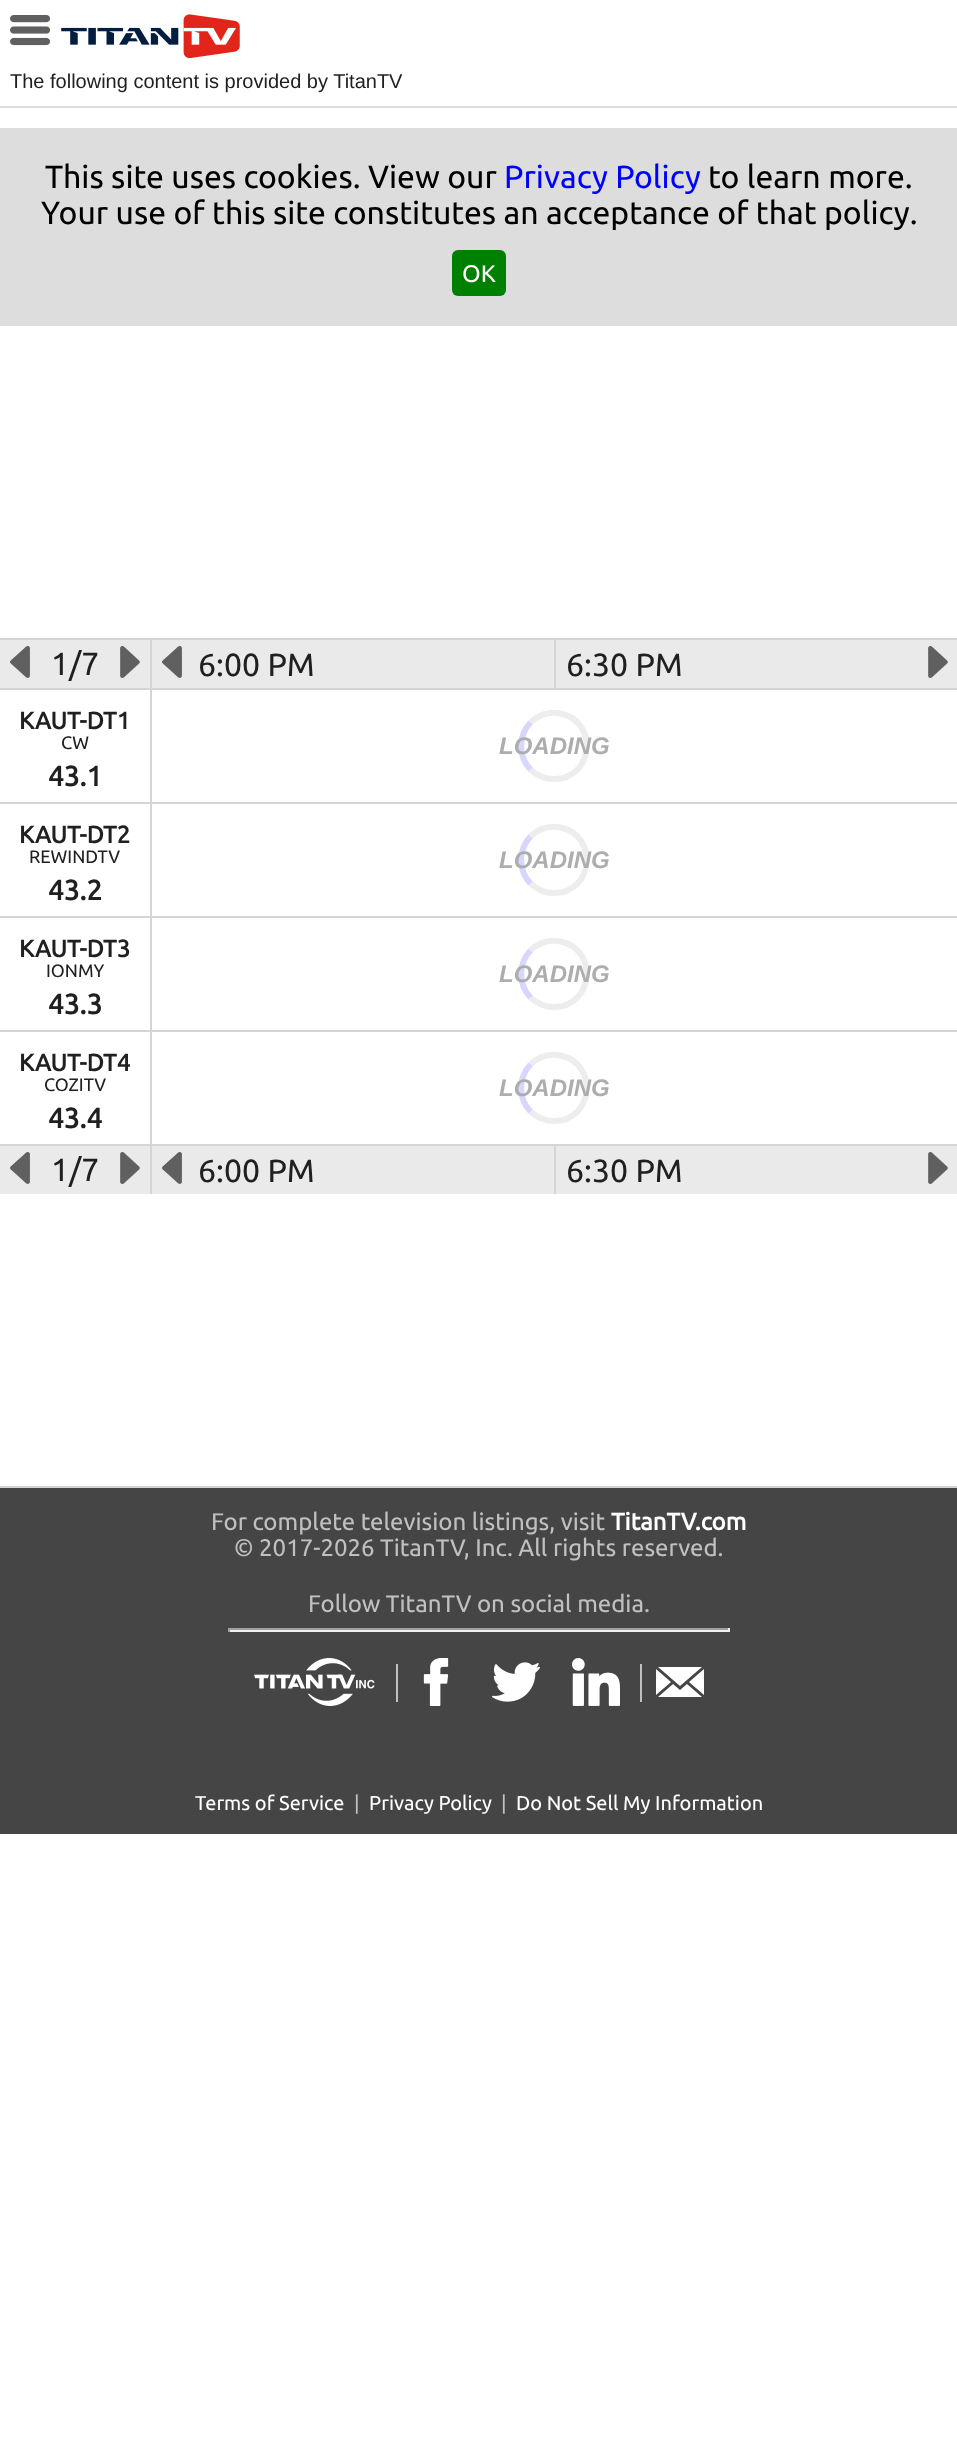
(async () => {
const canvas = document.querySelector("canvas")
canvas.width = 957
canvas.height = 2437
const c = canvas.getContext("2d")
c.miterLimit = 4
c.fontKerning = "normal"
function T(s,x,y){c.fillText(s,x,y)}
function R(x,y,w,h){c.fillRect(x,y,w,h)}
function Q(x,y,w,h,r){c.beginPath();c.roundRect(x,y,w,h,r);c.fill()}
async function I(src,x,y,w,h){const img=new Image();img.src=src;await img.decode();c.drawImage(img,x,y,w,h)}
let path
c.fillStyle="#fff"
R(0,0,957,2437)
await I("1.png",10,15,40,31)
await I("2.png",61,14,179,44)
c.font="20px Liberation Sans"
c.fillStyle="#202020"
T("The following content is provided by TitanTV",10,88)
c.fillStyle="#ddd"
R(0,106,957,2)
R(0,128,957,198)
c.font="32px Ubuntu"
c.fillStyle="#000"
T("This site uses cookies. View our",45,188)
c.fillStyle="#00f"
T("Privacy Policy",504,188)
c.fillStyle="#000"
T("to learn more.",708,188)
T("Your use of this site constitutes an acceptance of that policy.",41,224)
c.fillStyle="#008000"
Q(452,250,54,46,6)
c.font="24px Ubuntu"
c.fillStyle="#fff"
T("OK",462,282)
c.fillStyle="#eaeaea"
R(0,640,957,48)
c.fillStyle="#d5d5d5"
R(0,638,957,2)
R(150,640,2,48)
await I("3.png",10,646,20,32)
c.font="32px Ubuntu"
c.fillStyle="#202020"
T("1/7",51,675)
await I("4.png",120,646,20,32)
await I("3.png",162,646,20,32)
T("6:00 PM",198,676)
c.fillStyle="#d5d5d5"
R(554,640,2,48)
c.fillStyle="#202020"
T("6:30 PM",566,676)
await I("4.png",928,646,20,32)
c.fillStyle="#d5d5d5"
R(0,688,957,2)
R(150,690,2,112)
c.font="bold 24px Ubuntu"
c.fillStyle="#202020"
T("KAUT-DT1",19,729)
c.font="18px Ubuntu"
T("CW",61,749)
c.font="bold 28px Ubuntu"
T("43.1",48,786)
path = new Path2D("M530.5 722.5c8-7.5 19-11 30-9c38.5 8 33 65.5-6.5 65.5c-8.5 0-17-3.5-23.5-9.5")
c.strokeStyle="#ededed"
c.lineWidth=6
c.stroke(path)
path = new Path2D("M530.5 769.5c-12.5-13-12.5-34 0-47")
c.strokeStyle="#a4a4ff73"
c.stroke(path)
c.font="italic bold 24px Liberation Sans"
c.fillStyle="#adadad"
T("LOADING",499,754)
c.fillStyle="#d5d5d5"
R(0,802,957,2)
R(150,804,2,112)
c.font="bold 24px Ubuntu"
c.fillStyle="#202020"
T("KAUT-DT2",19,843)
c.font="18px Ubuntu"
T("REWINDTV",29,863)
c.font="bold 28px Ubuntu"
T("43.2",48,900)
path = new Path2D("M530.5 836.5c8-7.5 19-11 30-9c38.5 8 33 65.5-6.5 65.5c-8.5 0-17-3.5-23.5-9.5")
c.strokeStyle="#ededed"
c.stroke(path)
path = new Path2D("M530.5 883.5c-12.5-13-12.5-34 0-47")
c.strokeStyle="#a4a4ff73"
c.stroke(path)
c.font="italic bold 24px Liberation Sans"
c.fillStyle="#adadad"
T("LOADING",499,868)
c.fillStyle="#d5d5d5"
R(0,916,957,2)
R(150,918,2,112)
c.font="bold 24px Ubuntu"
c.fillStyle="#202020"
T("KAUT-DT3",19,957)
c.font="18px Ubuntu"
T("IONMY",46,977)
c.font="bold 28px Ubuntu"
T("43.3",48,1014)
path = new Path2D("M530.5 950.5c8-7.5 19-11 30-9c38.5 8 33 65.5-6.5 65.5c-8.5 0-17-3.5-23.5-9.5")
c.strokeStyle="#ededed"
c.stroke(path)
path = new Path2D("M530.5 997.5c-12.5-13-12.5-34 0-47")
c.strokeStyle="#a4a4ff73"
c.stroke(path)
c.font="italic bold 24px Liberation Sans"
c.fillStyle="#adadad"
T("LOADING",499,982)
c.fillStyle="#d5d5d5"
R(0,1030,957,2)
R(150,1032,2,112)
c.font="bold 24px Ubuntu"
c.fillStyle="#202020"
T("KAUT-DT4",19,1071)
c.font="18px Ubuntu"
T("COZITV",44,1091)
c.font="bold 28px Ubuntu"
T("43.4",48,1128)
path = new Path2D("M530.5 1064.5c8-7.5 19-11 30-9c38.5 8 33 65.5-6.5 65.5c-8.5 0-17-3.5-23.5-9.5")
c.strokeStyle="#ededed"
c.stroke(path)
path = new Path2D("M530.5 1111.5c-12.5-13-12.5-34 0-47")
c.strokeStyle="#a4a4ff73"
c.stroke(path)
c.font="italic bold 24px Liberation Sans"
c.fillStyle="#adadad"
T("LOADING",499,1096)
c.fillStyle="#eaeaea"
R(0,1146,957,48)
c.fillStyle="#d5d5d5"
R(0,1144,957,2)
R(150,1146,2,48)
await I("3.png",10,1152,20,32)
c.font="32px Ubuntu"
c.fillStyle="#202020"
T("1/7",51,1181)
await I("4.png",120,1152,20,32)
await I("3.png",162,1152,20,32)
T("6:00 PM",198,1182)
c.fillStyle="#d5d5d5"
R(554,1146,2,48)
c.fillStyle="#202020"
T("6:30 PM",566,1182)
await I("4.png",928,1152,20,32)
c.fillStyle="#454545"
R(0,1488,957,346)
c.fillStyle="#d5d5d5"
R(0,1486,957,2)
c.font="24px Ubuntu"
c.fillStyle="#c0c0c0"
T("For complete television listings, visit",211,1530)
c.font="bold 24px Ubuntu"
c.fillStyle="#fff"
T("TitanTV.com",611,1530)
c.font="24px Ubuntu"
c.fillStyle="#c0c0c0"
T("© 2017-2026 TitanTV, Inc. All rights reserved.",234,1556)
T("Follow TitanTV on social media.",308,1612)
c.fillStyle="#9f9f9f"
R(228,1628,502,2)
c.fillStyle="#eee"
R(728,1628,2,4)
R(228,1630,502,2)
c.fillStyle="#9f9f9f"
R(228,1628,2,4)
await I("5.png",254,1658,121,48)
c.fillStyle="#c0c0c0"
R(396,1664,2,38)
await I("6.png",423,1658,26,48)
await I("7.png",492,1662,48,40)
await I("8.png",572,1658,48,48)
R(640,1664,2,38)
c.fillStyle="#fff"
path = new Path2D("M680 1686l-22-19h44m-31 15l-15 13v-26")
c.fill(path)
path = new Path2D("M673 1684l7 6l7-6l15 13h-44m31-15l15-13v26")
c.fill(path)
c.font="20px Ubuntu"
T("Terms of Service",195,1810)
c.fillStyle="#c0c0c0"
T("|",354,1810)
c.fillStyle="#fff"
T("Privacy Policy",369,1810)
c.fillStyle="#c0c0c0"
T("|",501,1810)
c.fillStyle="#fff"
T("Do Not Sell My Information",516,1810)
})()
